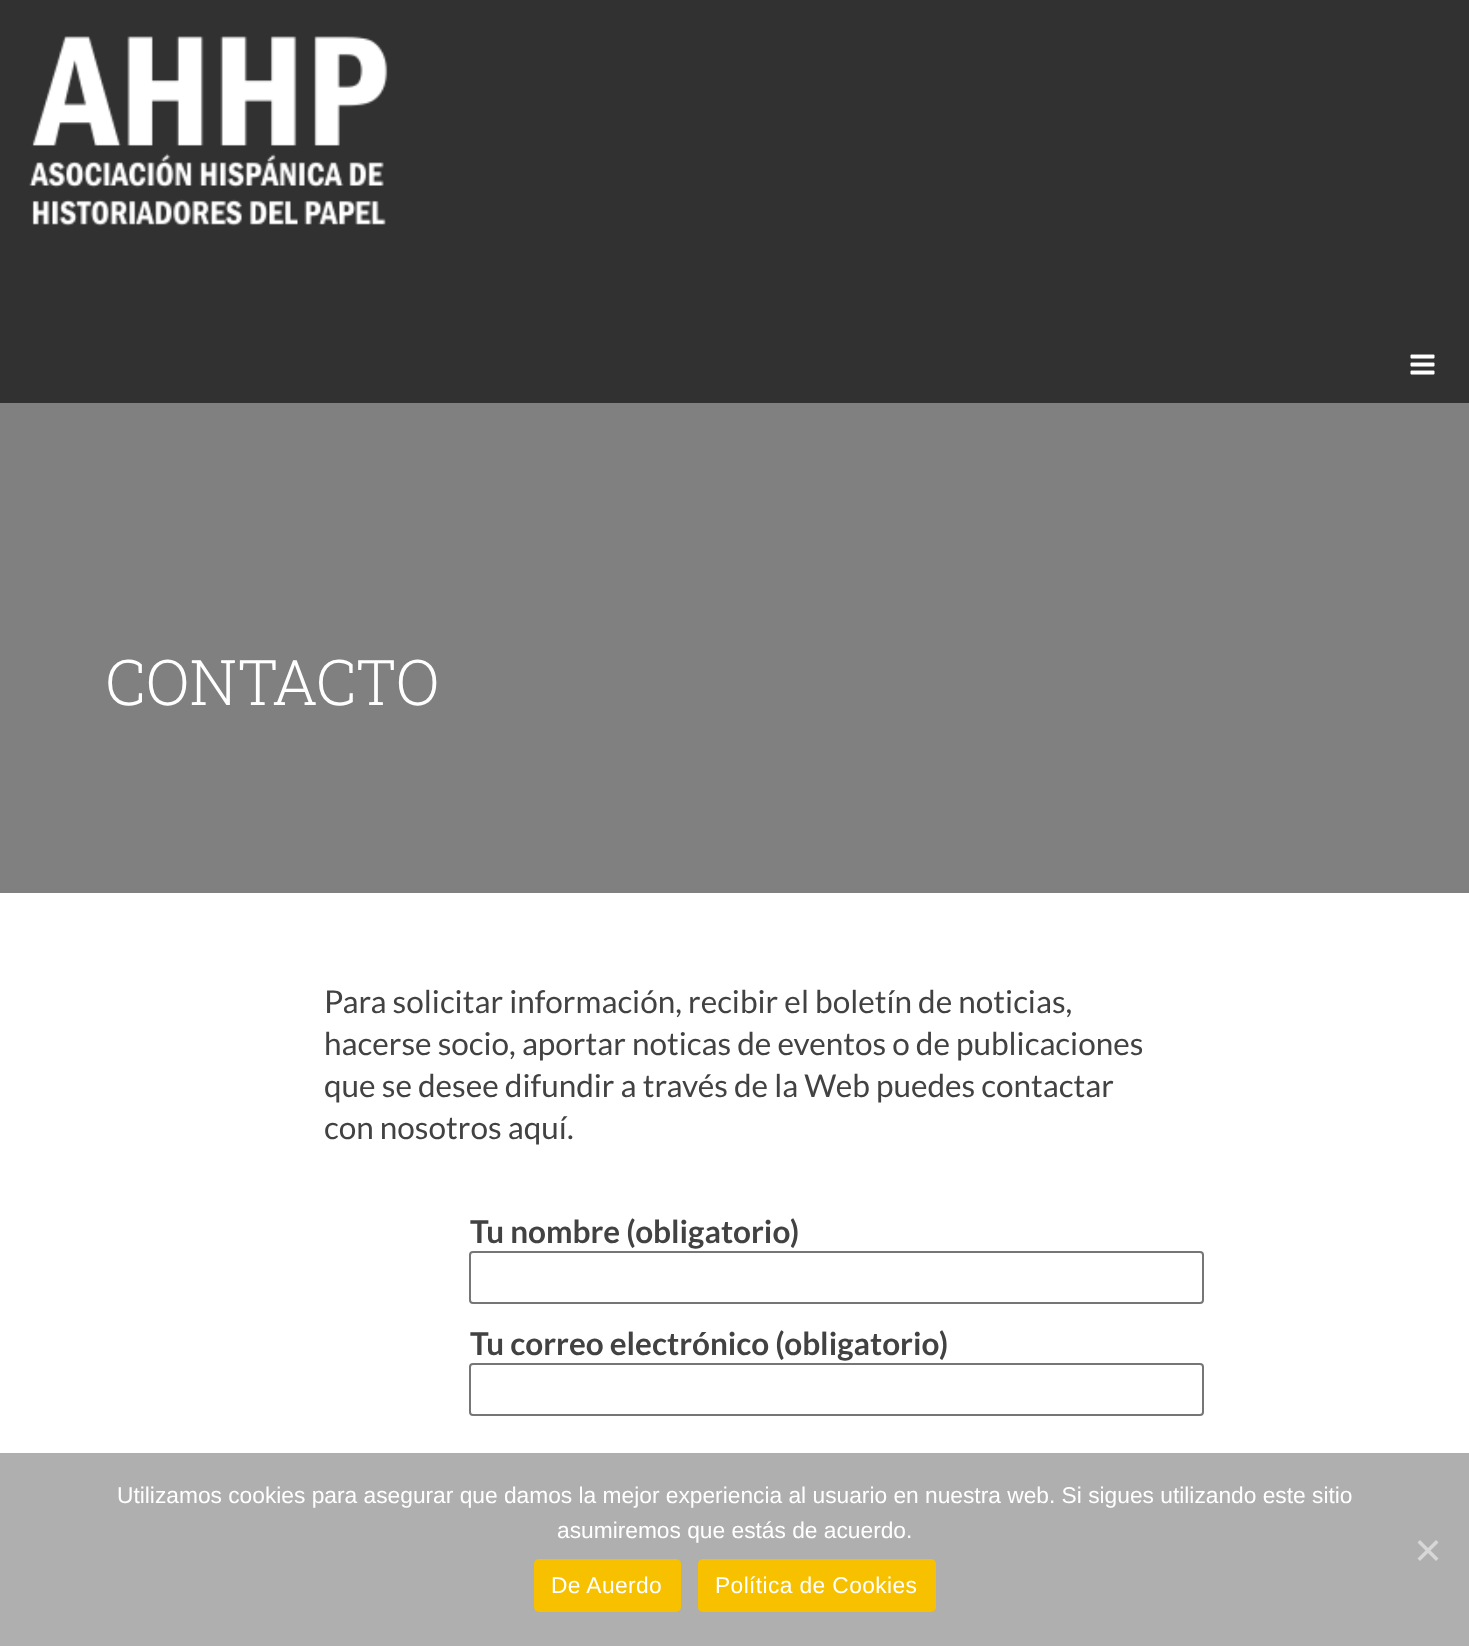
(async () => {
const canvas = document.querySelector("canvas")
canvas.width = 1469
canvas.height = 1646
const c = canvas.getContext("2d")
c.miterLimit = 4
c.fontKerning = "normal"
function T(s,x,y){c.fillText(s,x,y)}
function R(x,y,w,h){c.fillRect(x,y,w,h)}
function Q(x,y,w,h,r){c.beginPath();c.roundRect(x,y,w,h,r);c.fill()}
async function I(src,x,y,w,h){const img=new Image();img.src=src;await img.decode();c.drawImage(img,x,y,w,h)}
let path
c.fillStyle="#fff"
R(0,0,1469,1646)
c.fillStyle="#313131"
R(0,0,1469,403)
await I("1.png",29,36,359,190)
await I("2.png",1410,354,25,21)
c.fillStyle="#808080"
R(0,403,1469,490)
c.font="300 63px Roboto Slab"
c.fillStyle="#fff"
T("CONTACTO",105,705)
c.font="31.5px Lato"
c.fillStyle="#424242"
T("Para solicitar información, recibir el boletín de noticias,",324,1013)
T("hacerse socio, aportar noticas de eventos o de publicaciones",324,1055)
T("que se desee difundir a través de la Web puedes contactar",324,1097)
T("con nosotros aquí.",324,1139)
c.font="bold 31.5px Lato"
T("Tu nombre (obligatorio)",470,1243)
c.beginPath()
c.roundRect(470,1252,733,51,3)
c.strokeStyle="#767676"
c.lineWidth=2
c.stroke()
T("Tu correo electrónico (obligatorio)",470,1355)
c.beginPath()
c.roundRect(470,1364,733,51,3)
c.stroke()
c.fillStyle="#afafaf"
R(0,1453,1469,193)
c.font="22.75px Liberation Sans"
c.fillStyle="#fff"
T("Utilizamos cookies para asegurar que damos la mejor experiencia al usuario en nuestra web. Si sigues utilizando este sitio",117,1503)
T("asumiremos que estás de acuerdo.",557,1538)
c.fillStyle="#d7d7d7"
path = new Path2D("M1436 1540l2.5 2.5l-18.5 18.5l-2.5-2.5z")
c.fill(path)
path = new Path2D("M1417.5 1542.5l2.5-2.5l18.5 18.5l-2.5 2.5z")
c.fill(path)
c.fillStyle="#f7c100"
Q(534,1559,147,53,5)
c.letterSpacing="0.4px"
c.fillStyle="#fff"
T("De Auerdo",551,1593)
c.fillStyle="#f7c100"
Q(698,1559,238,53,5)
c.fillStyle="#fff"
T("Política de Cookies",715,1593)
})()
